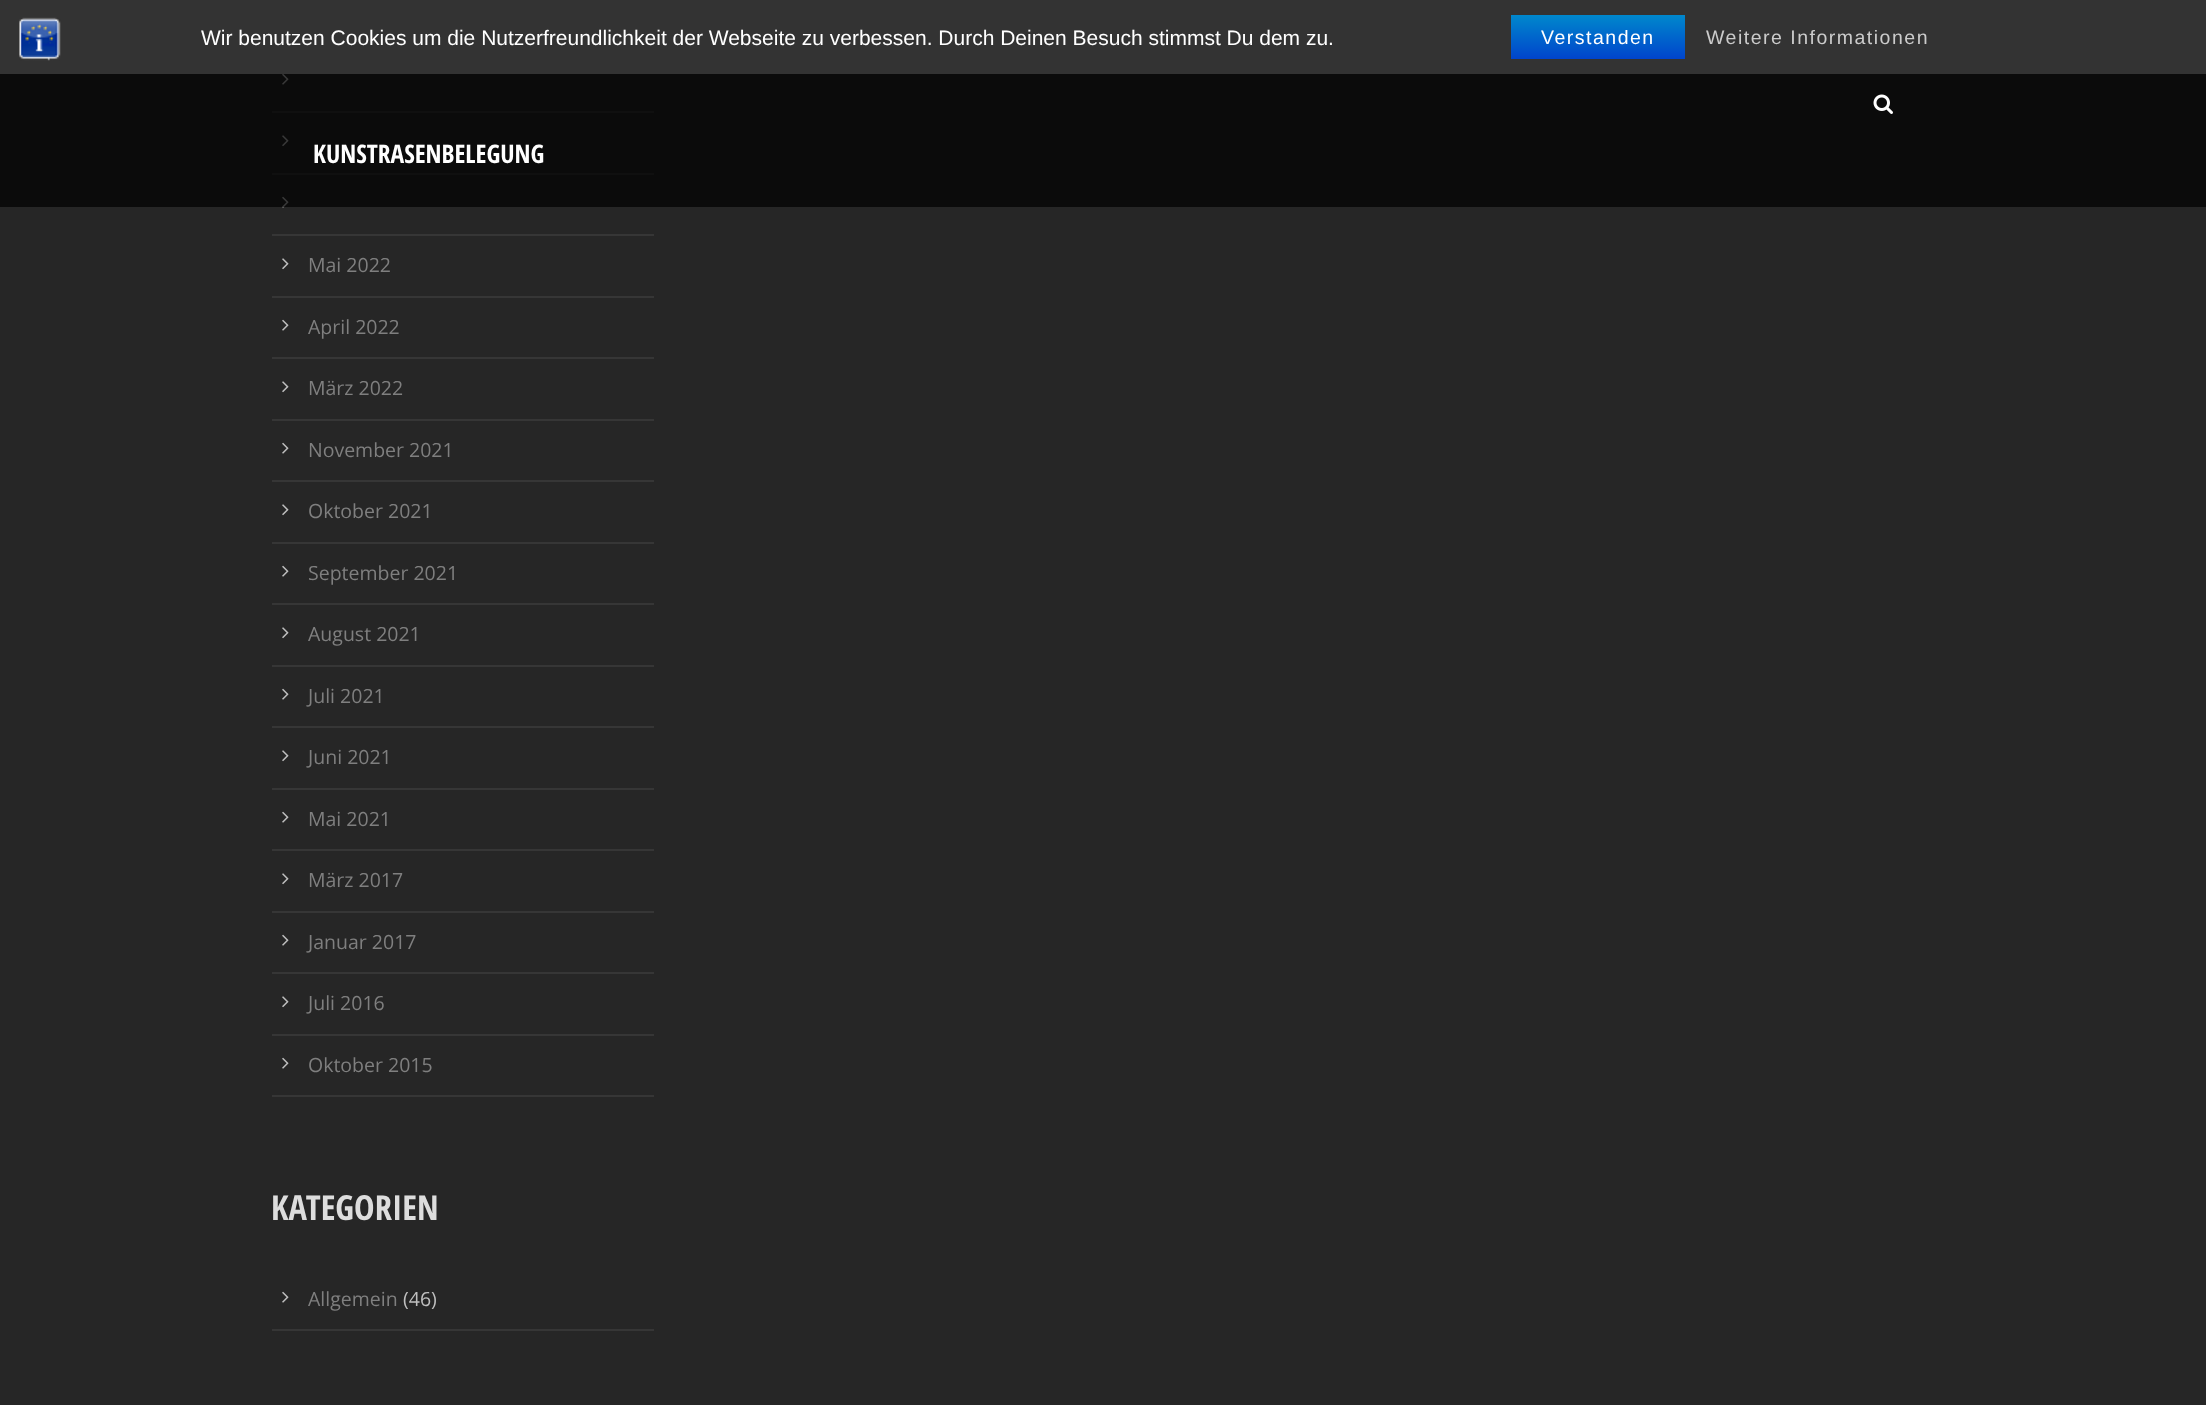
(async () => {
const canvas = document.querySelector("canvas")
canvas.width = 2206
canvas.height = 1405
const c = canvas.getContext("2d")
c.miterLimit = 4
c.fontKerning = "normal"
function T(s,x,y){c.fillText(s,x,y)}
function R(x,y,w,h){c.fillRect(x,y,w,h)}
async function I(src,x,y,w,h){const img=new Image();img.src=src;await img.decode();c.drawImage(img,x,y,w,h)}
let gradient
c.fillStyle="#262626"
R(0,0,2206,1405)
c.fillStyle="#333"
R(0,0,2206,74)
await I("1.png",19,17,42,44)
c.font="21px Liberation Sans"
c.fillStyle="#fff"
T("Wir benutzen Cookies um die Nutzerfreundlichkeit der Webseite zu verbessen. Durch Deinen Besuch stimmst Du dem zu.",201,45)
gradient = c.createLinearGradient(1598,15,1598,59)
gradient.addColorStop(0,"#08c")
gradient.addColorStop(1,"#04c")
c.fillStyle = gradient
R(1511,15,174,44)
c.letterSpacing="1.5px"
c.font="19.5px Liberation Sans"
c.fillStyle="#fff"
T("Verstanden",1541,44)
c.fillStyle="#ccc"
T("Weitere Informationen",1706,44)
c.fillStyle="#363636"
R(272,111,382,2)
await I("3.png",282,74,7,11)
R(272,173,382,2)
await I("4.png",282,135,7,12)
await I("5.png",282,196,7,12)
c.fillStyle="#000000b3"
R(0,74,2206,133)
await I("2.png",1873,94,20,20)
c.letterSpacing="0px"
c.font="bold 25.5px Open Sans Condensed"
c.fillStyle="#fff"
T("KUNSTRASENBELEGUNG",313,163)
c.fillStyle="#363636"
R(272,234,382,2)
R(272,296,382,2)
await I("4.png",282,258,7,12)
c.font="19.5px Open Sans"
c.fillStyle="#7f7f7f"
T("Mai 2022",308,272)
c.fillStyle="#363636"
R(272,357,382,2)
await I("5.png",282,319,7,12)
c.fillStyle="#7f7f7f"
T("April 2022",308,334)
c.fillStyle="#363636"
R(272,419,382,2)
await I("4.png",282,381,7,12)
c.fillStyle="#7f7f7f"
T("März 2022",308,395)
c.fillStyle="#363636"
R(272,480,382,2)
await I("5.png",282,442,7,12)
c.fillStyle="#7f7f7f"
T("November 2021",308,457)
c.fillStyle="#363636"
R(272,542,382,2)
await I("4.png",282,504,7,12)
c.fillStyle="#7f7f7f"
T("Oktober 2021",308,518)
c.fillStyle="#363636"
R(272,603,382,2)
await I("5.png",282,565,7,12)
c.fillStyle="#7f7f7f"
T("September 2021",308,580)
c.fillStyle="#363636"
R(272,665,382,2)
await I("4.png",282,627,7,12)
c.fillStyle="#7f7f7f"
T("August 2021",308,641)
c.fillStyle="#363636"
R(272,726,382,2)
await I("5.png",282,688,7,12)
c.fillStyle="#7f7f7f"
T("Juli 2021",308,703)
c.fillStyle="#363636"
R(272,788,382,2)
await I("4.png",282,750,7,12)
c.fillStyle="#7f7f7f"
T("Juni 2021",308,764)
c.fillStyle="#363636"
R(272,849,382,2)
await I("5.png",282,811,7,12)
c.fillStyle="#7f7f7f"
T("Mai 2021",308,826)
c.fillStyle="#363636"
R(272,911,382,2)
await I("4.png",282,873,7,12)
c.fillStyle="#7f7f7f"
T("März 2017",308,887)
c.fillStyle="#363636"
R(272,972,382,2)
await I("5.png",282,934,7,12)
c.fillStyle="#7f7f7f"
T("Januar 2017",308,949)
c.fillStyle="#363636"
R(272,1034,382,2)
await I("4.png",282,996,7,12)
c.fillStyle="#7f7f7f"
T("Juli 2016",308,1010)
c.fillStyle="#363636"
R(272,1095,382,2)
await I("5.png",282,1057,7,12)
c.fillStyle="#7f7f7f"
T("Oktober 2015",308,1072)
c.font="bold 34.5px Open Sans Condensed"
c.fillStyle="#ddd"
T("KATEGORIEN",271,1220)
c.fillStyle="#363636"
R(272,1329,382,2)
await I("5.png",282,1291,7,12)
c.font="19.5px Open Sans"
c.fillStyle="#7f7f7f"
T("Allgemein",308,1306)
c.fillStyle="#bfbfbf"
T("(46)",403,1306)
})()
